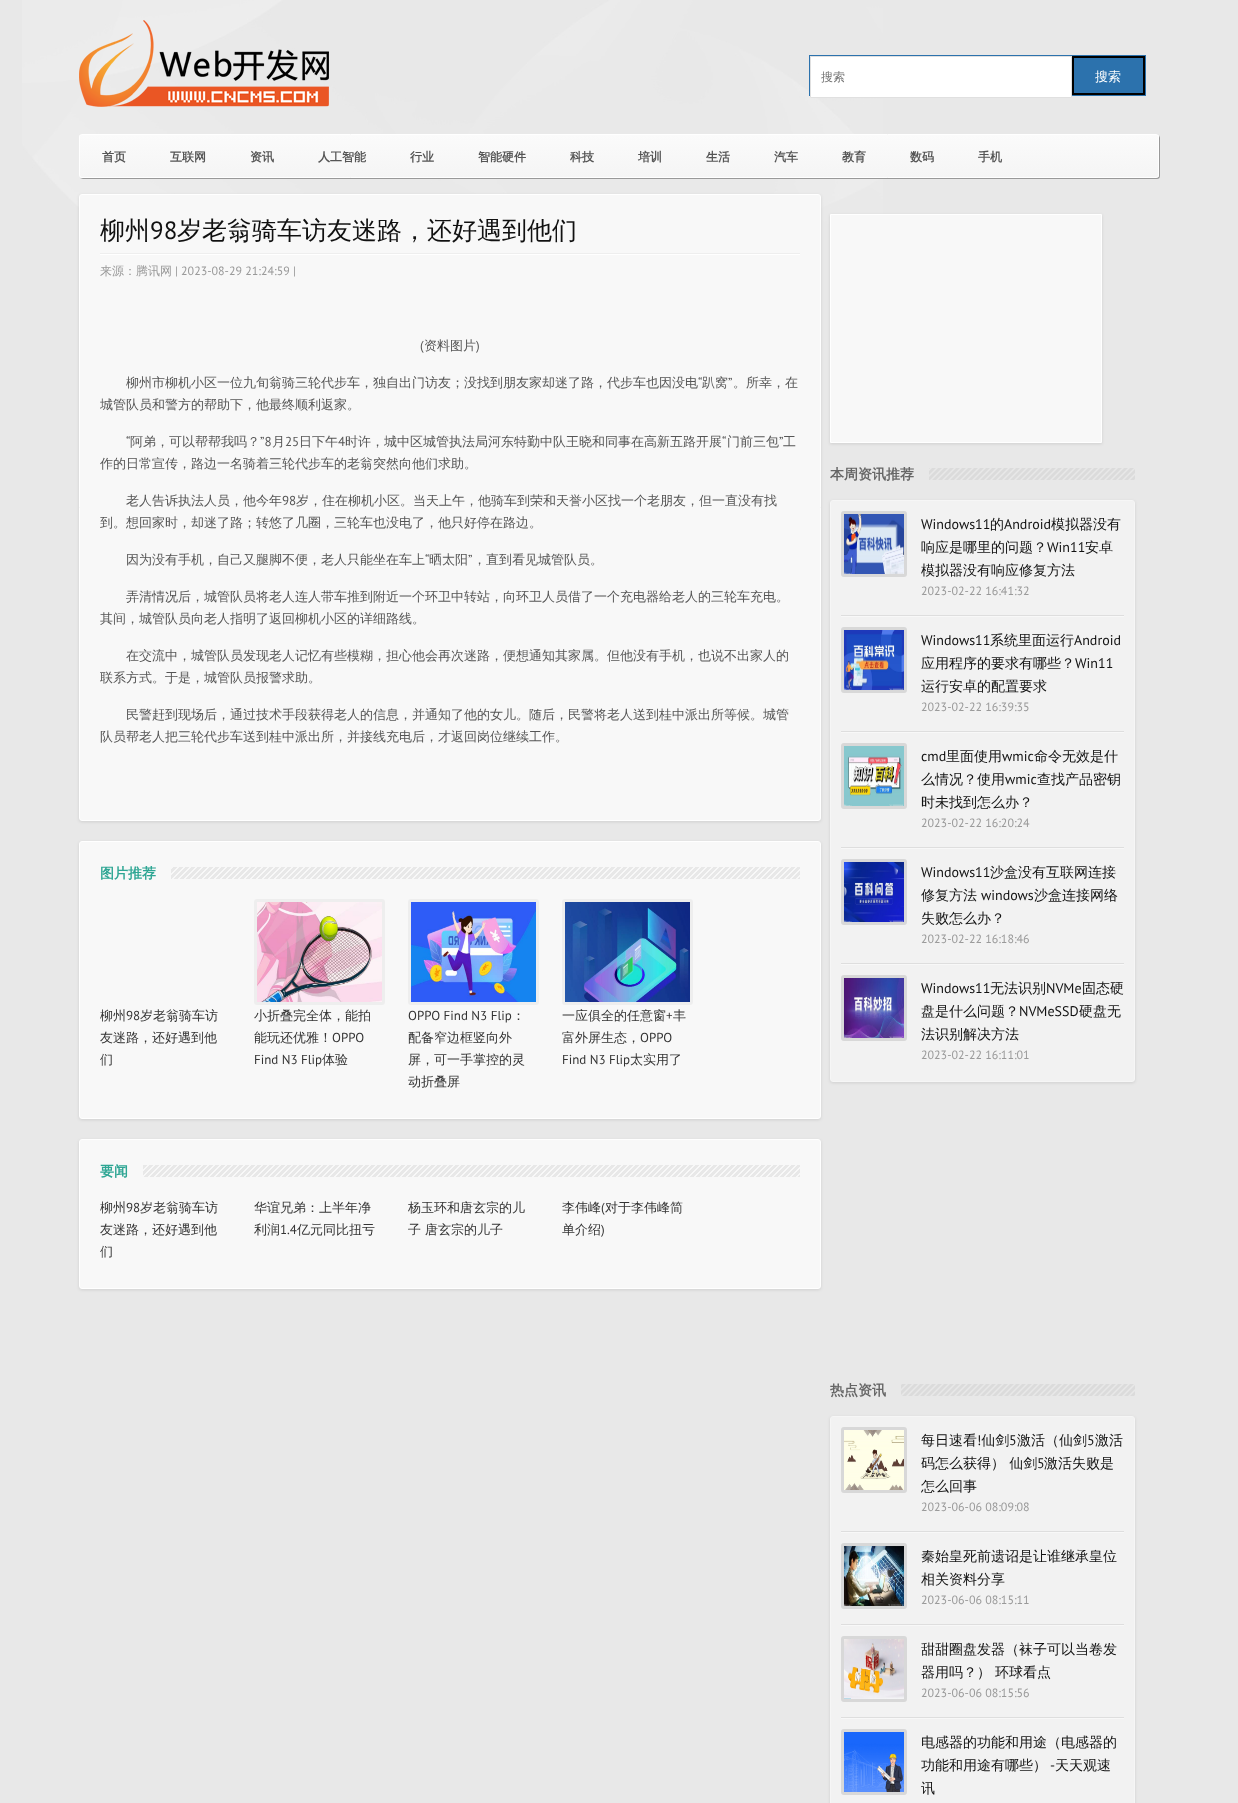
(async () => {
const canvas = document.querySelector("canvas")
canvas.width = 1238
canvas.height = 1803
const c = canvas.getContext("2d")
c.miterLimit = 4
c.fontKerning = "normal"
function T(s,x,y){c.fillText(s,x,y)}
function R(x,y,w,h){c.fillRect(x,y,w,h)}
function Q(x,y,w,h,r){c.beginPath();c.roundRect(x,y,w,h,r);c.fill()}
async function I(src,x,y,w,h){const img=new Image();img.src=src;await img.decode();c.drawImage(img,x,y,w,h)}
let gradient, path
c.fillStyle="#e8e8e8"
R(0,0,1238,1803)
await I("1.png",22,0,861,289)
await I("2.png",79,20,250,87)
c.strokeStyle="#2c72ad"
c.strokeRect(809.5,55.5,336,40)
c.fillStyle="#fff"
c.beginPath()
c.rect(810.5,56.5,261,41)
c.fill()
c.strokeStyle="#e0e0e0"
c.stroke()
c.font="500 12px WenQuanYi Zen Hei"
c.fillStyle="#757575"
T("搜索",821,81)
c.fillStyle="#2c72ad"
c.beginPath()
c.rect(1073,57,71,37)
c.fill()
c.strokeStyle="#000"
c.lineWidth=2
c.stroke()
c.font="500 13px WenQuanYi Zen Hei"
c.fillStyle="#fff"
T("搜索",1095,81)
c.fillStyle="#999"
path = new Path2D("M80 178c1 0 2 1 3 1h1074c2 0 3-1 3-3v-38c0-1-1-2-1-3v2v38c0 2-1 3-3 3h-1074z")
c.fill(path)
c.save()
c.beginPath()
c.roundRect(79,134,1080,44,3)
c.clip()
gradient = c.createLinearGradient(80,135,80,177)
gradient.addColorStop(0,"#fbfbfb")
gradient.addColorStop(1,"#f5f5f5")
c.fillStyle = gradient
R(79,135,1080,42)
c.restore()
c.beginPath()
c.roundRect(79.5,134.5,1079,43,2.5)
c.strokeStyle="#fff"
c.lineWidth=1
c.stroke()
c.font="bold 12px WenQuanYi Zen Hei"
c.fillStyle="#555"
T("首页",102,161)
T("互联网",170,161)
T("资讯",250,161)
T("人工智能",318,161)
T("行业",410,161)
T("智能硬件",478,161)
T("科技",570,161)
T("培训",638,161)
T("生活",706,161)
T("汽车",774,161)
T("教育",842,161)
T("数码",910,161)
T("手机",978,161)
c.fillStyle="#0000001a"
c.filter="blur(1.5px)"
c.beginPath()
c.roundRect(79,195,742,627,3)
c.fill()
c.filter="none"
c.fillStyle="#f8f8f8"
c.beginPath()
c.roundRect(79.5,194.5,741,626,2.5)
c.fill()
c.stroke()
await I("3.png",100,253,700,2)
c.font="500 25px WenQuanYi Zen Hei"
c.fillStyle="#111"
T("柳州",100,239)
c.font="25px PT Sans"
T("98",150,239)
c.font="500 25px WenQuanYi Zen Hei"
T("岁老翁骑车访友迷路，还好遇到他们",177,239)
c.font="500 12px WenQuanYi Zen Hei"
c.fillStyle="#999"
T("来源：腾讯网",100,275)
c.font="12px PT Sans"
T("| 2023-08-29 21:24:59 |",175,275)
c.font="13px PT Sans"
c.fillStyle="#555"
T("(",420,350)
c.font="500 13px WenQuanYi Zen Hei"
T("资料图片",424,350)
c.font="13px PT Sans"
T(")",476,350)
c.font="500 13px WenQuanYi Zen Hei"
T("柳州市柳机小区一位九旬翁骑三轮代步车，独自出门访友；没找到朋友家却迷了路，代步车也因没电",126,387)
c.font="13px PT Sans"
T("“",698,387)
c.font="500 13px WenQuanYi Zen Hei"
T("趴窝",702,387)
c.font="13px PT Sans"
T("”",728,387)
c.font="500 13px WenQuanYi Zen Hei"
T("。所幸，在",733,387)
T("城管队员和警方的帮助下，他最终顺利返家。",100,409)
c.font="13px PT Sans"
T("“",126,446)
c.font="500 13px WenQuanYi Zen Hei"
T("阿弟，可以帮帮我吗？",130,446)
c.font="13px PT Sans"
T("”8",260,446)
c.font="500 13px WenQuanYi Zen Hei"
T("月",272,446)
c.font="13px PT Sans"
T("25",285,446)
c.font="500 13px WenQuanYi Zen Hei"
T("日下午",299,446)
c.font="13px PT Sans"
T("4",338,446)
c.font="500 13px WenQuanYi Zen Hei"
T("时许，城中区城管执法局河东特勤中队王晓和同事在高新五路开展",345,446)
c.font="13px PT Sans"
T("“",722,446)
c.font="500 13px WenQuanYi Zen Hei"
T("门前三包",727,446)
c.font="13px PT Sans"
T("”",779,446)
c.font="500 13px WenQuanYi Zen Hei"
T("工",783,446)
T("作的日常宣传，路边一名骑着三轮代步车的老翁突然向他们求助。",100,468)
T("老人告诉执法人员，他今年",126,505)
c.font="13px PT Sans"
T("98",282,505)
c.font="500 13px WenQuanYi Zen Hei"
T("岁，住在柳机小区。当天上午，他骑车到荣和天誉小区找一个老朋友，但一直没有找",296,505)
T("到。想回家时，却迷了路；转悠了几圈，三轮车也没电了，他只好停在路边。",100,527)
T("因为没有手机，自己又腿脚不便，老人只能坐在车上",126,564)
c.font="13px PT Sans"
T("“",425,564)
c.font="500 13px WenQuanYi Zen Hei"
T("晒太阳",429,564)
c.font="13px PT Sans"
T("”",468,564)
c.font="500 13px WenQuanYi Zen Hei"
T("，直到看见城管队员。",473,564)
T("弄清情况后，城管队员将老人连人带车推到附近一个环卫中转站，向环卫人员借了一个充电器给老人的三轮车充电。",126,601)
T("其间，城管队员向老人指明了返回柳机小区的详细路线。",100,623)
T("在交流中，城管队员发现老人记忆有些模糊，担心他会再次迷路，便想通知其家属。但他没有手机，也说不出家人的",126,660)
T("联系方式。于是，城管队员报警求助。",100,682)
T("民警赶到现场后，通过技术手段获得老人的信息，并通知了他的女儿。随后，民警将老人送到桂中派出所等候。城管",126,719)
T("队员帮老人把三轮代步车送到桂中派出所，并接线充电后，才返回岗位继续工作。",100,741)
c.fillStyle="#0000001a"
c.filter="blur(1.5px)"
c.beginPath()
c.roundRect(79,842,742,278,3)
c.fill()
c.filter="none"
c.fillStyle="#f8f8f8"
c.beginPath()
c.roundRect(79.5,841.5,741,277,2.5)
c.fill()
c.stroke()
await I("4.png",171,867,629,12)
c.font="bold 14px WenQuanYi Zen Hei"
c.fillStyle="#2fa694"
T("图片推荐",100,878)
c.font="500 13px WenQuanYi Zen Hei"
c.fillStyle="#333"
T("柳州",100,1020)
c.font="13px PT Sans"
T("98",126,1020)
c.font="500 13px WenQuanYi Zen Hei"
T("岁老翁骑车访",140,1020)
T("友迷路，还好遇到他",100,1042)
T("们",100,1064)
c.fillStyle="#eee"
Q(254,899,131,106,3)
await I("5.png",257,902,125,100)
c.fillStyle="#333"
T("小折叠完全体，能拍",254,1020)
T("能玩还优雅！",254,1042)
c.font="13px PT Sans"
T("OPPO",332,1042)
T("Find N3 Flip",254,1064)
c.font="500 13px WenQuanYi Zen Hei"
T("体验",322,1064)
c.fillStyle="#eee"
Q(408,899,131,106,3)
await I("6.png",411,902,125,100)
c.font="13px PT Sans"
c.fillStyle="#333"
T("OPPO Find N3 Flip",408,1020)
c.font="500 13px WenQuanYi Zen Hei"
T("：",512,1020)
T("配备窄边框竖向外",408,1042)
T("屏，可一手掌控的灵",408,1064)
T("动折叠屏",408,1086)
c.fillStyle="#eee"
Q(562,899,131,106,3)
await I("7.png",565,902,125,100)
c.fillStyle="#333"
T("一应俱全的任意窗",562,1020)
c.font="13px PT Sans"
T("+",666,1020)
c.font="500 13px WenQuanYi Zen Hei"
T("丰",673,1020)
T("富外屏生态，",562,1042)
c.font="13px PT Sans"
T("OPPO",640,1042)
T("Find N3 Flip",562,1064)
c.font="500 13px WenQuanYi Zen Hei"
T("太实用了",630,1064)
c.fillStyle="#0000001a"
c.filter="blur(1.5px)"
c.beginPath()
c.roundRect(79,1140,742,150,3)
c.fill()
c.filter="none"
c.fillStyle="#f8f8f8"
c.beginPath()
c.roundRect(79.5,1139.5,741,149,2.5)
c.fill()
c.stroke()
await I("8.png",143,1165,657,12)
c.font="bold 14px WenQuanYi Zen Hei"
c.fillStyle="#2fa694"
T("要闻",100,1176)
c.font="500 13px WenQuanYi Zen Hei"
c.fillStyle="#333"
T("柳州",100,1212)
c.font="13px PT Sans"
T("98",126,1212)
c.font="500 13px WenQuanYi Zen Hei"
T("岁老翁骑车访",140,1212)
T("友迷路，还好遇到他",100,1234)
T("们",100,1256)
T("华谊兄弟：上半年净",254,1212)
T("利润",254,1234)
c.font="13px PT Sans"
T("1.4",280,1234)
c.font="500 13px WenQuanYi Zen Hei"
T("亿元同比扭亏",297,1234)
T("杨玉环和唐玄宗的儿",408,1212)
T("子 唐玄宗的儿子",408,1234)
T("李伟峰",562,1212)
c.font="13px PT Sans"
T("(",601,1212)
c.font="500 13px WenQuanYi Zen Hei"
T("对于李伟峰简",605,1212)
T("单介绍",562,1234)
c.font="13px PT Sans"
T(")",601,1234)
c.fillStyle="#0000001a"
c.filter="blur(1.5px)"
c.beginPath()
c.rect(830,215,272,229)
c.fill()
c.filter="none"
c.fillStyle="#f8f8f8"
c.beginPath()
c.rect(830.5,214.5,271,228)
c.fill()
c.stroke()
await I("9.png",929,468,206,12)
c.font="bold 14px WenQuanYi Zen Hei"
c.fillStyle="#666"
T("本周资讯推荐",830,479)
c.fillStyle="#0000001a"
c.filter="blur(1.5px)"
c.beginPath()
c.roundRect(830,501,305,582,3)
c.fill()
c.filter="none"
c.fillStyle="#f2f2f2"
c.beginPath()
c.roundRect(830.5,500.5,304,581,2.5)
c.fill()
c.strokeStyle="#f6f6f6"
c.stroke()
await I("10.png",841,615,283,2)
c.fillStyle="#d8d8d8"
Q(841,511,66,66,3)
await I("11.png",844,514,60,60)
c.font="14px PT Sans"
c.fillStyle="#111"
T("Windows11",921,529)
c.font="500 14px WenQuanYi Zen Hei"
T("的",990,529)
c.font="14px PT Sans"
T("Android",1004,529)
c.font="500 14px WenQuanYi Zen Hei"
T("模拟器没有",1051,529)
T("响应是哪里的问题？",921,552)
c.font="14px PT Sans"
T("Win11",1047,552)
c.font="500 14px WenQuanYi Zen Hei"
T("安卓",1085,552)
T("模拟器没有响应修复方法",921,575)
c.font="12px PT Sans"
c.fillStyle="#999"
T("2023-02-22 16:41:32",921,595)
await I("10.png",841,731,283,2)
c.fillStyle="#d8d8d8"
Q(841,627,66,66,3)
await I("12.png",844,630,60,60)
c.font="14px PT Sans"
c.fillStyle="#111"
T("Windows11",921,645)
c.font="500 14px WenQuanYi Zen Hei"
T("系统里面运行",990,645)
c.font="14px PT Sans"
T("Android",1074,645)
c.font="500 14px WenQuanYi Zen Hei"
T("应用程序的要求有哪些？",921,668)
c.font="14px PT Sans"
T("Win11",1075,668)
c.font="500 14px WenQuanYi Zen Hei"
T("运行安卓的配置要求",921,691)
c.font="12px PT Sans"
c.fillStyle="#999"
T("2023-02-22 16:39:35",921,711)
await I("10.png",841,847,283,2)
c.fillStyle="#d8d8d8"
Q(841,743,66,66,3)
await I("13.png",844,746,60,60)
c.font="14px PT Sans"
c.fillStyle="#111"
T("cmd",921,761)
c.font="500 14px WenQuanYi Zen Hei"
T("里面使用",946,761)
c.font="14px PT Sans"
T("wmic",1002,761)
c.font="500 14px WenQuanYi Zen Hei"
T("命令无效是什",1034,761)
T("么情况？使用",921,784)
c.font="14px PT Sans"
T("wmic",1005,784)
c.font="500 14px WenQuanYi Zen Hei"
T("查找产品密钥",1037,784)
T("时未找到怎么办？",921,807)
c.font="12px PT Sans"
c.fillStyle="#999"
T("2023-02-22 16:20:24",921,827)
await I("10.png",841,963,283,2)
c.fillStyle="#d8d8d8"
Q(841,859,66,66,3)
await I("14.png",844,862,60,60)
c.font="14px PT Sans"
c.fillStyle="#111"
T("Windows11",921,877)
c.font="500 14px WenQuanYi Zen Hei"
T("沙盒没有互联网连接",990,877)
T("修复方法",921,900)
c.font="14px PT Sans"
T("windows",981,900)
c.font="500 14px WenQuanYi Zen Hei"
T("沙盒连接网络",1034,900)
T("失败怎么办？",921,923)
c.font="12px PT Sans"
c.fillStyle="#999"
T("2023-02-22 16:18:46",921,943)
c.fillStyle="#d8d8d8"
Q(841,975,66,66,3)
await I("15.png",844,978,60,60)
c.font="14px PT Sans"
c.fillStyle="#111"
T("Windows11",921,993)
c.font="500 14px WenQuanYi Zen Hei"
T("无法识别",990,993)
c.font="14px PT Sans"
T("NVMe",1046,993)
c.font="500 14px WenQuanYi Zen Hei"
T("固态硬",1082,993)
T("盘是什么问题？",921,1016)
c.font="14px PT Sans"
T("NVMeSSD",1019,1016)
c.font="500 14px WenQuanYi Zen Hei"
T("硬盘无",1079,1016)
T("法识别解决方法",921,1039)
c.font="12px PT Sans"
c.fillStyle="#999"
T("2023-02-22 16:11:01",921,1059)
await I("16.png",901,1384,234,12)
c.font="bold 14px WenQuanYi Zen Hei"
c.fillStyle="#666"
T("热点资讯",830,1395)
c.fillStyle="#0000001a"
c.filter="blur(1.5px)"
c.beginPath()
c.roundRect(830,1417,305,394,3)
c.fill()
c.filter="none"
c.fillStyle="#f2f2f2"
c.beginPath()
c.roundRect(830.5,1416.5,304,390,2.5)
c.fill()
c.stroke()
await I("10.png",841,1531,283,2)
c.fillStyle="#d8d8d8"
Q(841,1427,66,66,3)
await I("17.png",844,1430,60,60)
c.font="500 14px WenQuanYi Zen Hei"
c.fillStyle="#111"
T("每日速看 仙剑",921,1445)
T("激活（仙剑",1017,1445)
T("激活",1095,1445)
c.font="14px PT Sans"
T("!",977,1445)
T("5",1009,1445)
T("5",1087,1445)
c.font="500 14px WenQuanYi Zen Hei"
T("码怎么获得） 仙剑",921,1468)
c.font="14px PT Sans"
T("5",1037,1468)
c.font="500 14px WenQuanYi Zen Hei"
T("激活失败是",1044,1468)
T("怎么回事",921,1491)
c.font="12px PT Sans"
c.fillStyle="#999"
T("2023-06-06 08:09:08",921,1511)
await I("10.png",841,1624,283,2)
c.fillStyle="#d8d8d8"
Q(841,1543,66,66,3)
await I("18.png",844,1546,60,60)
c.font="500 14px WenQuanYi Zen Hei"
c.fillStyle="#111"
T("秦始皇死前遗诏是让谁继承皇位",921,1561)
T("相关资料分享",921,1584)
c.font="12px PT Sans"
c.fillStyle="#999"
T("2023-06-06 08:15:11",921,1604)
await I("10.png",841,1717,283,2)
c.fillStyle="#d8d8d8"
Q(841,1636,66,66,3)
await I("19.png",844,1639,60,60)
c.font="500 14px WenQuanYi Zen Hei"
c.fillStyle="#111"
T("甜甜圈盘发器（袜子可以当卷发",921,1654)
T("器用吗？）",921,1677)
T("环球看点",995,1677)
c.font="12px PT Sans"
c.fillStyle="#999"
T("2023-06-06 08:15:56",921,1697)
c.fillStyle="#d8d8d8"
Q(841,1729,66,66,3)
await I("20.png",844,1732,60,60)
c.font="500 14px WenQuanYi Zen Hei"
c.fillStyle="#111"
T("电感器的功能和用途（电感器的",921,1747)
T("功能和用途有哪些）",921,1770)
c.font="14px PT Sans"
T("-",1050,1770)
c.font="500 14px WenQuanYi Zen Hei"
T("天天观速",1055,1770)
T("讯",921,1793)
})()
